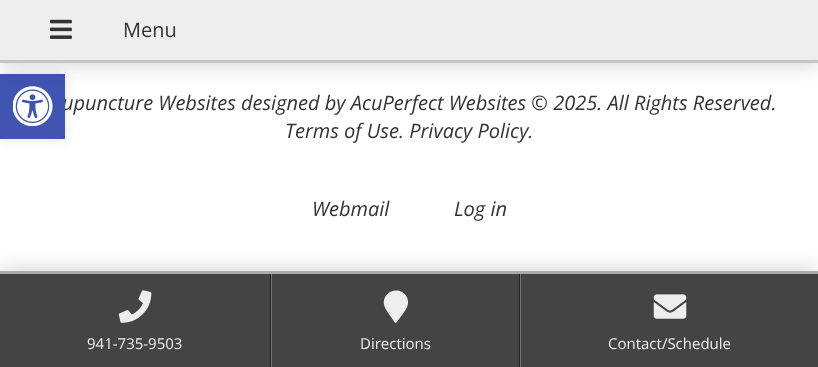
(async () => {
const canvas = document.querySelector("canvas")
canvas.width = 818
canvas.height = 367
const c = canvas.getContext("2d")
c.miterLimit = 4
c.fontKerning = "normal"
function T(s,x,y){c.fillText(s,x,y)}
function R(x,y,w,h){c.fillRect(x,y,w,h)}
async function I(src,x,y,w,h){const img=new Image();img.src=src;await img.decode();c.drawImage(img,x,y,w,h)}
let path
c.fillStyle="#fff"
R(0,0,818,367)
c.fillStyle="#0000001a"
c.filter="blur(6px)"
c.beginPath()
c.rect(0,74,65,65)
c.fill()
c.filter="none"
c.font="italic 20px Open Sans"
c.fillStyle="#333"
T("upuncture Websites designed by AcuPerfect Websites © 2025. All Rights Reserved.",62,110)
c.fillStyle="#4054b2"
R(0,74,65,65)
await I("1.png",13,86,40,40)
c.fillStyle="#00000026"
c.filter="blur(10px)"
c.beginPath()
c.rect(0,4,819,62)
c.fill()
c.filter="none"
c.fillStyle="#eee"
R(0,0,818,60)
c.fillStyle="#c6c6c6"
R(0,60,818,3)
await I("2.png",50,19,22,20)
c.font="20px Open Sans"
c.fillStyle="#333"
T("Menu",123,37)
c.font="italic 20px Open Sans"
T("Terms of Use. Privacy Policy.",285,138)
T("Webmail",312,216)
T("Log in",454,216)
c.fillStyle="#00000026"
c.filter="blur(10px)"
c.beginPath()
c.rect(0,268,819,96)
c.fill()
c.filter="none"
c.fillStyle="#444"
R(0,274,818,93)
c.fillStyle="#aaa"
R(0,271,818,3)
c.fillStyle="#222"
R(270,274,1,93)
await I("3.png",118,290,34,33)
c.font="15px Open Sans"
c.fillStyle="#eee"
T("941-735-9503",87,349)
c.fillStyle="#222"
R(519,274,1,93)
c.fillStyle="#767676"
R(271,274,1,93)
c.fillStyle="#eee"
path = new Path2D("M394.5 322c-2.5-4-9.5-12.5-10.5-17c-2.5-13 14.5-20 22-9.5c5.5 8.5-1 15.5-5.5 21.5l-4 5.5c-.5 .5-1.5 .5-2-.5z")
c.fill(path)
T("Directions",360,349)
c.fillStyle="#767676"
R(520,274,1,93)
await I("4.png",653,294,34,25)
c.fillStyle="#eee"
T("Contact/Schedule",608,349)
})()
